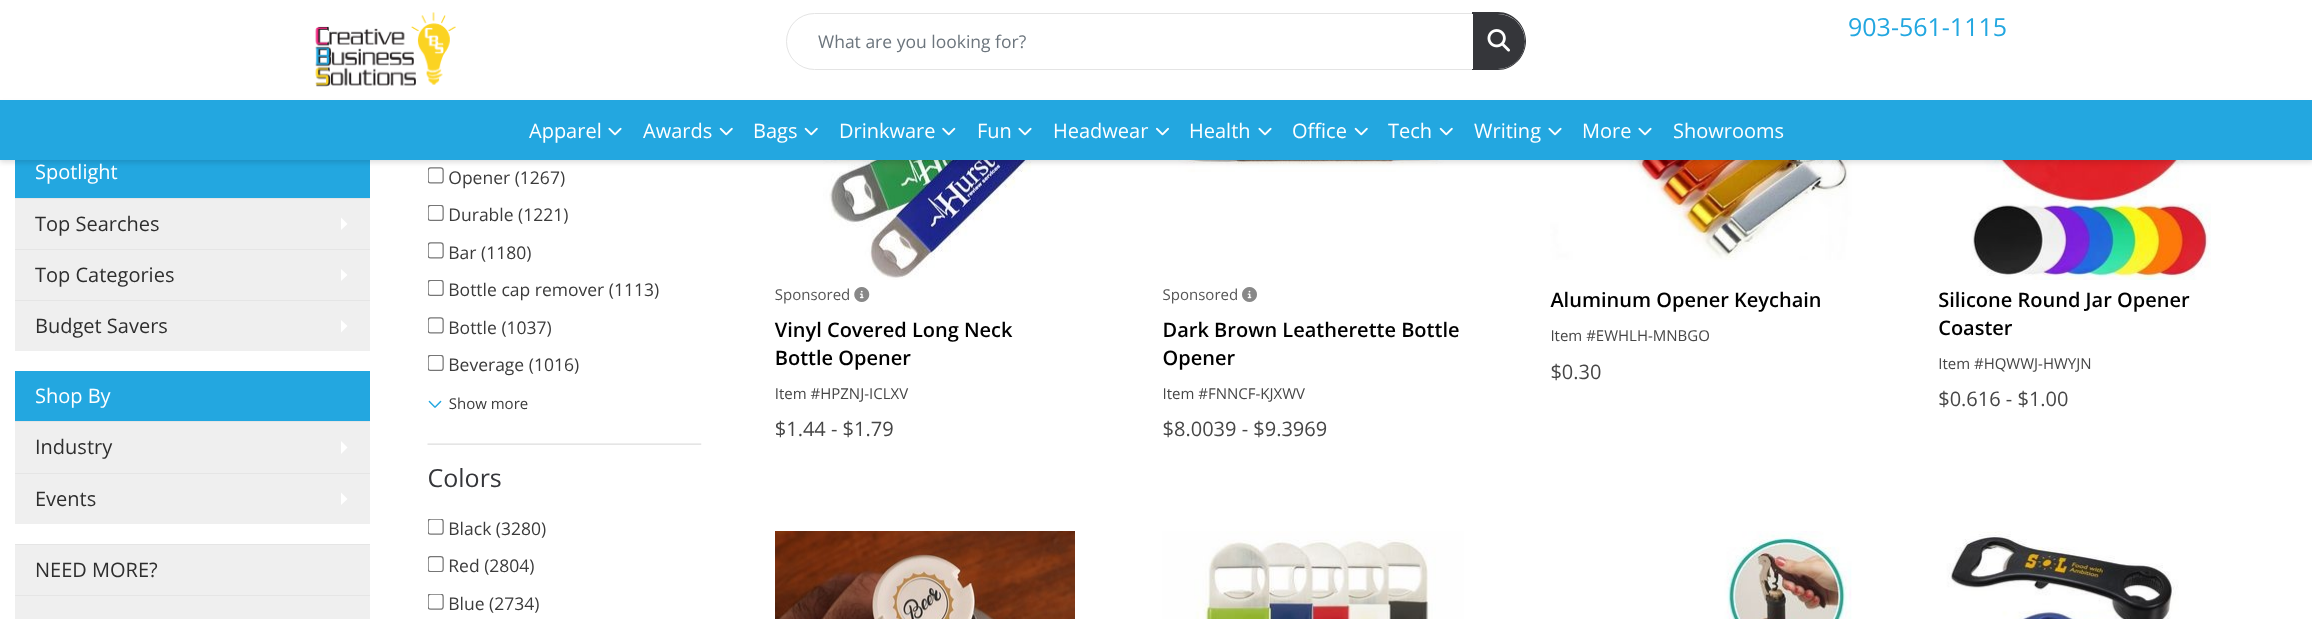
(async () => {
const canvas = document.querySelector("canvas")
canvas.width = 2312
canvas.height = 619
const c = canvas.getContext("2d")
c.miterLimit = 4
c.fontKerning = "normal"
function T(s,x,y){c.fillText(s,x,y)}
function R(x,y,w,h){c.fillRect(x,y,w,h)}
async function I(src,x,y,w,h){const img=new Image();img.src=src;await img.decode();c.drawImage(img,x,y,w,h)}
let path
c.fillStyle="#fff"
R(0,0,2312,619)
c.fillStyle="#23a7e0"
R(15,160,355,38)
await I("7.png",427,160,1784,459)
c.fillStyle="#0000001a"
c.filter="blur(3px)"
c.beginPath()
c.rect(0,0,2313,160)
c.fill()
c.filter="none"
c.fillStyle="#fff"
R(0,0,2312,100)
await I("1.png",315,12,141,75)
c.font="25px Open Sans"
c.fillStyle="#23a7e0"
T("903-561-1115",1848,36)
c.beginPath()
c.roundRect(786.5,13.5,687,56,[28,0,0,28])
c.strokeStyle="#e4e4e4"
c.stroke()
c.font="17.5px Open Sans"
c.fillStyle="#6c757d"
T("What are you looking for?",818,48)
c.fillStyle="#35363a"
c.beginPath()
c.roundRect(1473,14,52,55,[0,27.5,27.5,0])
c.fill()
path = new Path2D("M1472 12h26c15 0 28 13 28 29c0 16-13 29-28 29h-26zm0 2h26c15 0 27 12 27 27c0 15-12 28-27 28h-26z")
c.fill(path,"evenodd")
await I("2.png",1487,29,23,23)
c.fillStyle="#00000012"
c.filter="blur(2.5px)"
c.beginPath()
c.rect(0,103,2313,60)
c.fill()
c.filter="none"
c.fillStyle="#23a7e0"
R(0,100,2312,60)
c.font="20px Open Sans"
c.fillStyle="#fff"
T("Apparel",529,138)
await I("3.png",608,127,14,9)
T("Awards",643,138)
await I("4.png",719,127,14,9)
T("Bags",753,138)
await I("4.png",804,127,14,9)
T("Drinkware",839,138)
await I("5.png",942,127,14,9)
T("Fun",977,138)
await I("3.png",1018,127,14,9)
T("Headwear",1053,138)
await I("6.png",1156,127,13,9)
T("Health",1189,138)
await I("3.png",1258,127,14,9)
T("Office",1292,138)
await I("4.png",1354,127,14,9)
T("Tech",1388,138)
await I("4.png",1439,127,14,9)
T("Writing",1474,138)
await I("3.png",1548,127,14,9)
T("More",1582,138)
await I("3.png",1638,127,14,9)
T("Showrooms",1673,138)
T("Spotlight",35,179)
c.fillStyle="#efefef"
R(15,199,355,50)
c.fillStyle="#e5e5e5"
R(15,198,355,1)
c.fillStyle="#2e2e2e"
T("Top Searches",35,231)
c.fillStyle="#fff"
path = new Path2D("M341 230v-12.5l6.5 6.5z")
c.fill(path)
c.fillStyle="#efefef"
R(15,250,355,50)
c.fillStyle="#e5e5e5"
R(15,249,355,1)
c.fillStyle="#2e2e2e"
T("Top Categories",35,282)
c.fillStyle="#fff"
path = new Path2D("M341 281v-12l6.5 6z")
c.fill(path)
c.fillStyle="#efefef"
R(15,301,355,50)
c.fillStyle="#e5e5e5"
R(15,300,355,1)
c.fillStyle="#2e2e2e"
T("Budget Savers",35,333)
c.fillStyle="#fff"
path = new Path2D("M341 332.5v-12.5l6.5 6z")
c.fill(path)
c.fillStyle="#23a7e0"
R(15,371,355,50)
c.fillStyle="#fff"
T("Shop By",35,403)
c.fillStyle="#efefef"
R(15,422,355,51)
c.fillStyle="#e5e5e5"
R(15,421,355,1)
c.fillStyle="#2e2e2e"
T("Industry",35,454)
c.fillStyle="#fff"
path = new Path2D("M341 454v-13l6.5 6.5z")
c.fill(path)
c.fillStyle="#efefef"
R(15,474,355,50)
c.fillStyle="#e5e5e5"
R(15,473,355,1)
c.fillStyle="#2e2e2e"
T("Events",35,506)
c.fillStyle="#fff"
path = new Path2D("M341 505v-12.5l6.5 6.5z")
c.fill(path)
c.fillStyle="#efefef"
R(15,545,355,50)
c.fillStyle="#e5e5e5"
R(15,544,355,1)
c.fillStyle="#2e2e2e"
T("NEED MORE?",35,577)
c.fillStyle="#efefef"
R(15,596,355,23)
c.fillStyle="#e5e5e5"
R(15,595,355,1)
})()
